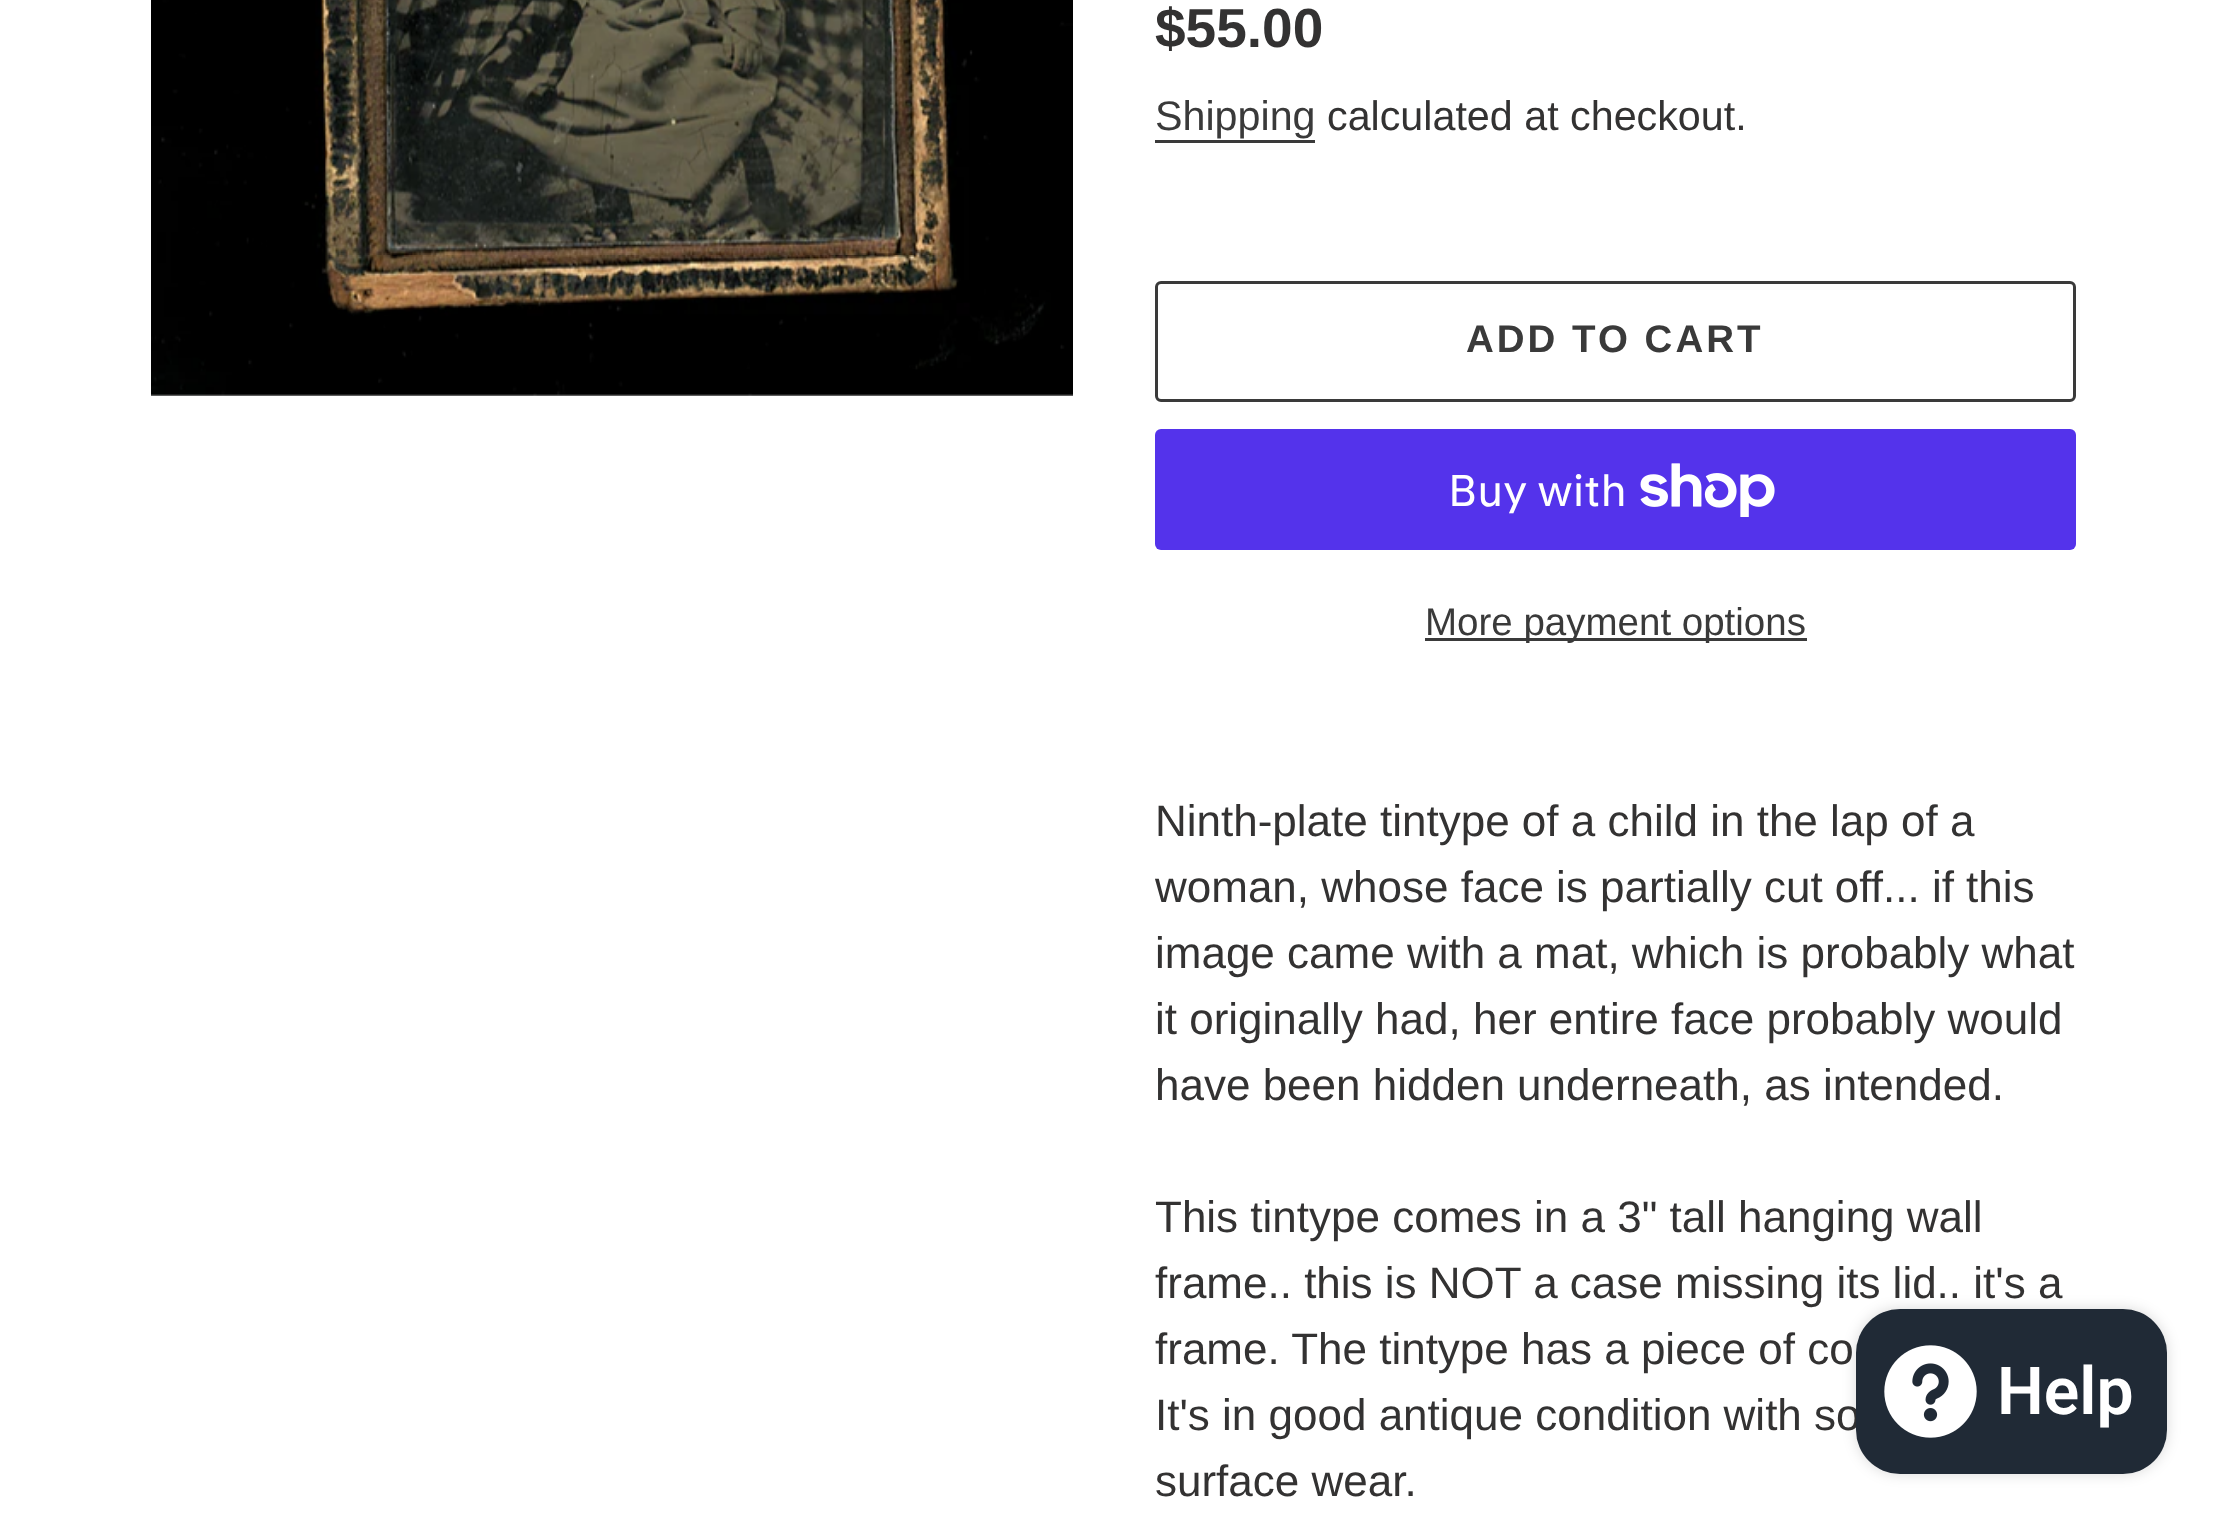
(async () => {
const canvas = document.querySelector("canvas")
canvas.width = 2226
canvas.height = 1531
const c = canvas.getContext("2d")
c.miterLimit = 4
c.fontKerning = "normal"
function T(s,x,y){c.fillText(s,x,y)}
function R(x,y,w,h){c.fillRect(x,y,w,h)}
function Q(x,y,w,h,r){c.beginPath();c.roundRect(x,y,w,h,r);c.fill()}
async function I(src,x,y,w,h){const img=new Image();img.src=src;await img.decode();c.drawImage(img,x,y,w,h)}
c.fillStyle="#fff"
R(0,0,2226,1531)
await I("1.png",151,0,922,396)
c.font="bold 55px Liberation Sans"
c.fillStyle="#333232"
T("$55.00",1155,47)
c.font="41.25px Liberation Sans"
c.fillStyle="#3a3a3a"
T("Shipping",1155,130)
R(1155,140,160,3)
c.fillStyle="#333232"
T("calculated at checkout.",1327,130)
c.beginPath()
c.roundRect(1156.5,282.5,918,118,4.5)
c.strokeStyle="#3a3a3a"
c.lineWidth=3
c.stroke()
c.letterSpacing="3px"
c.font="bold 38.5px Liberation Sans"
c.fillStyle="#3a3a3a"
T("ADD TO CART",1466,352)
c.fillStyle="#5433eb"
Q(1155,429,921,121,6)
c.letterSpacing="0px"
c.font="44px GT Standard"
c.fillStyle="#fff"
T("Buy with",1448,506)
await I("2.png",1640,463,135,54)
c.fillStyle="#3a3a3a"
R(1425,638,382,3)
c.font="38.5px Liberation Sans"
T("More payment options",1425,635)
c.font="44px Liberation Sans"
c.fillStyle="#333232"
T("Ninth-plate tintype of a child in the lap of a",1155,836)
T("woman, whose face is partially cut off... if this",1155,902)
T("image came with a mat, which is probably what",1155,968)
T("it originally had, her entire face probably would",1155,1034)
T("have been hidden underneath, as intended.",1155,1100)
T("This tintype comes in a 3\" tall hanging wall",1155,1232)
T("frame.. this is NOT a case missing its lid.. it's a",1155,1298)
T("frame. The tintype has a piece of co",1155,1364)
T("It's in good antique condition with so",1155,1430)
T("surface wear.",1155,1496)
c.fillStyle="#00000026"
c.filter="blur(7px)"
c.beginPath()
c.roundRect(1856,1309,311,165,44)
c.fill()
c.filter="none"
c.fillStyle="#202a36"
Q(1856,1309,311,165,44)
await I("3.png",1884,1345,93,93)
c.font="600 66px Roboto"
c.fillStyle="#fff"
T("Help",1997,1414)
})()
